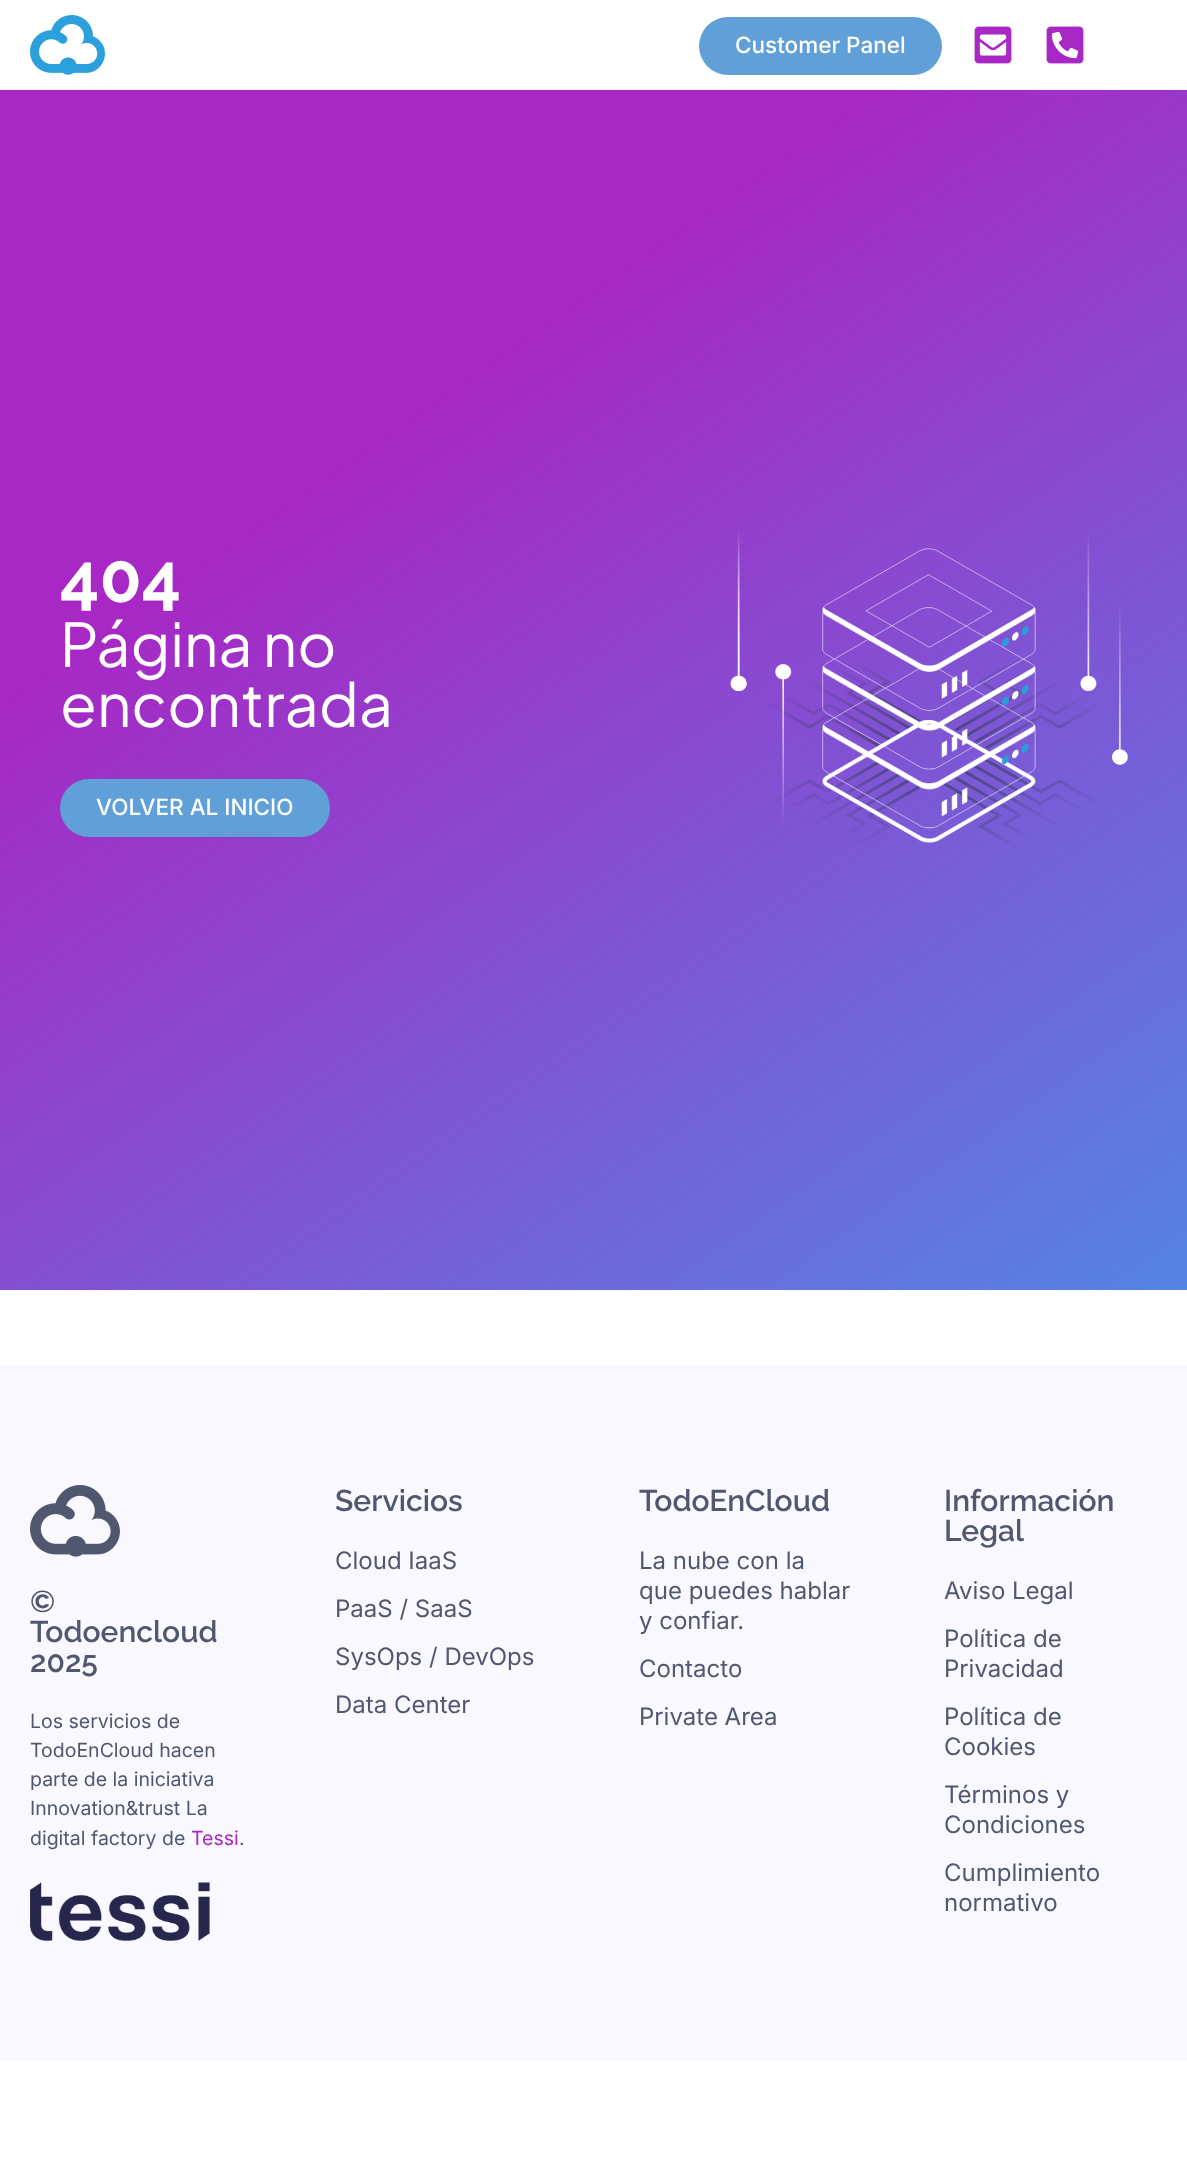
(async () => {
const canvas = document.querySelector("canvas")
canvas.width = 1187
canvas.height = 2175
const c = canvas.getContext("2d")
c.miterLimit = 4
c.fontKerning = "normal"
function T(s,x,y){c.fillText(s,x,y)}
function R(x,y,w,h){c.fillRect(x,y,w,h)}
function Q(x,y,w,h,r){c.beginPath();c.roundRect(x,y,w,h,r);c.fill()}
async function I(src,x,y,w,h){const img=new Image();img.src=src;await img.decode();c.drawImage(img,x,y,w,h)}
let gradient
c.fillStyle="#fff"
R(0,0,1187,2175)
await I("1.png",30,15,75,60)
c.fillStyle="#609fd7"
Q(699,17,243,58,29)
c.font="500 22.5px Inter"
c.fillStyle="#fff"
T("Customer Panel",735,53)
await I("2.png",974,26,38,38)
await I("3.png",1046,26,38,38)
gradient = c.createLinearGradient(117,8,1071,1372)
gradient.addColorStop(.3,"#a728c4")
gradient.addColorStop(1,"#5484e5")
c.fillStyle = gradient
R(0,90,1187,1200)
c.font="bold 69px Raleway"
c.fillStyle="#fff"
T("404",60,602)
c.font="60px Plus Jakarta Sans"
T("Página no",60,667)
T("encontrada",60,727)
c.fillStyle="#609fd7"
Q(60,779,270,58,29)
c.font="500 22.5px Inter"
c.fillStyle="#fff"
T("VOLVER AL INICIO",96,815)
await I("4.png",730,531,398,317)
c.fillStyle="#f8f8fe"
R(0,1365,1187,696)
await I("5.png",30,1485,90,72)
c.font="600 30px Raleway"
c.fillStyle="#50576f"
T("©",30,1612)
T("Todoencloud",30,1642)
T("2025",30,1672)
c.font="19.5px Inter"
T("Los servicios de",30,1728)
T("TodoEnCloud hacen",30,1757)
T("parte de la iniciativa",30,1786)
T("Innovation&trust La",30,1815)
T("digital factory de",30,1845)
c.fillStyle="#a728c4"
T("Tessi",191,1845)
c.fillStyle="#50576f"
T(".",239,1845)
await I("6.png",30,1882,180,59)
c.font="600 30px Raleway"
T("Servicios",335,1511)
c.font="24px Inter"
T("Cloud IaaS",335,1569)
T("PaaS / SaaS",335,1617)
T("SysOps / DevOps",335,1665)
T("Data Center",335,1713)
c.font="600 30px Raleway"
T("TodoEnCloud",639,1511)
c.font="24px Inter"
T("La nube con la",639,1569)
T("que puedes hablar",639,1599)
T("y confiar.",639,1629)
T("Contacto",639,1677)
T("Private Area",639,1725)
c.font="600 30px Raleway"
T("Información",944,1511)
T("Legal",944,1541)
c.font="24px Inter"
T("Aviso Legal",944,1599)
T("Política de",944,1647)
T("Privacidad",944,1677)
T("Política de",944,1725)
T("Cookies",944,1755)
T("Términos y",944,1803)
T("Condiciones",944,1833)
T("Cumplimiento",944,1881)
T("normativo",944,1911)
})()
